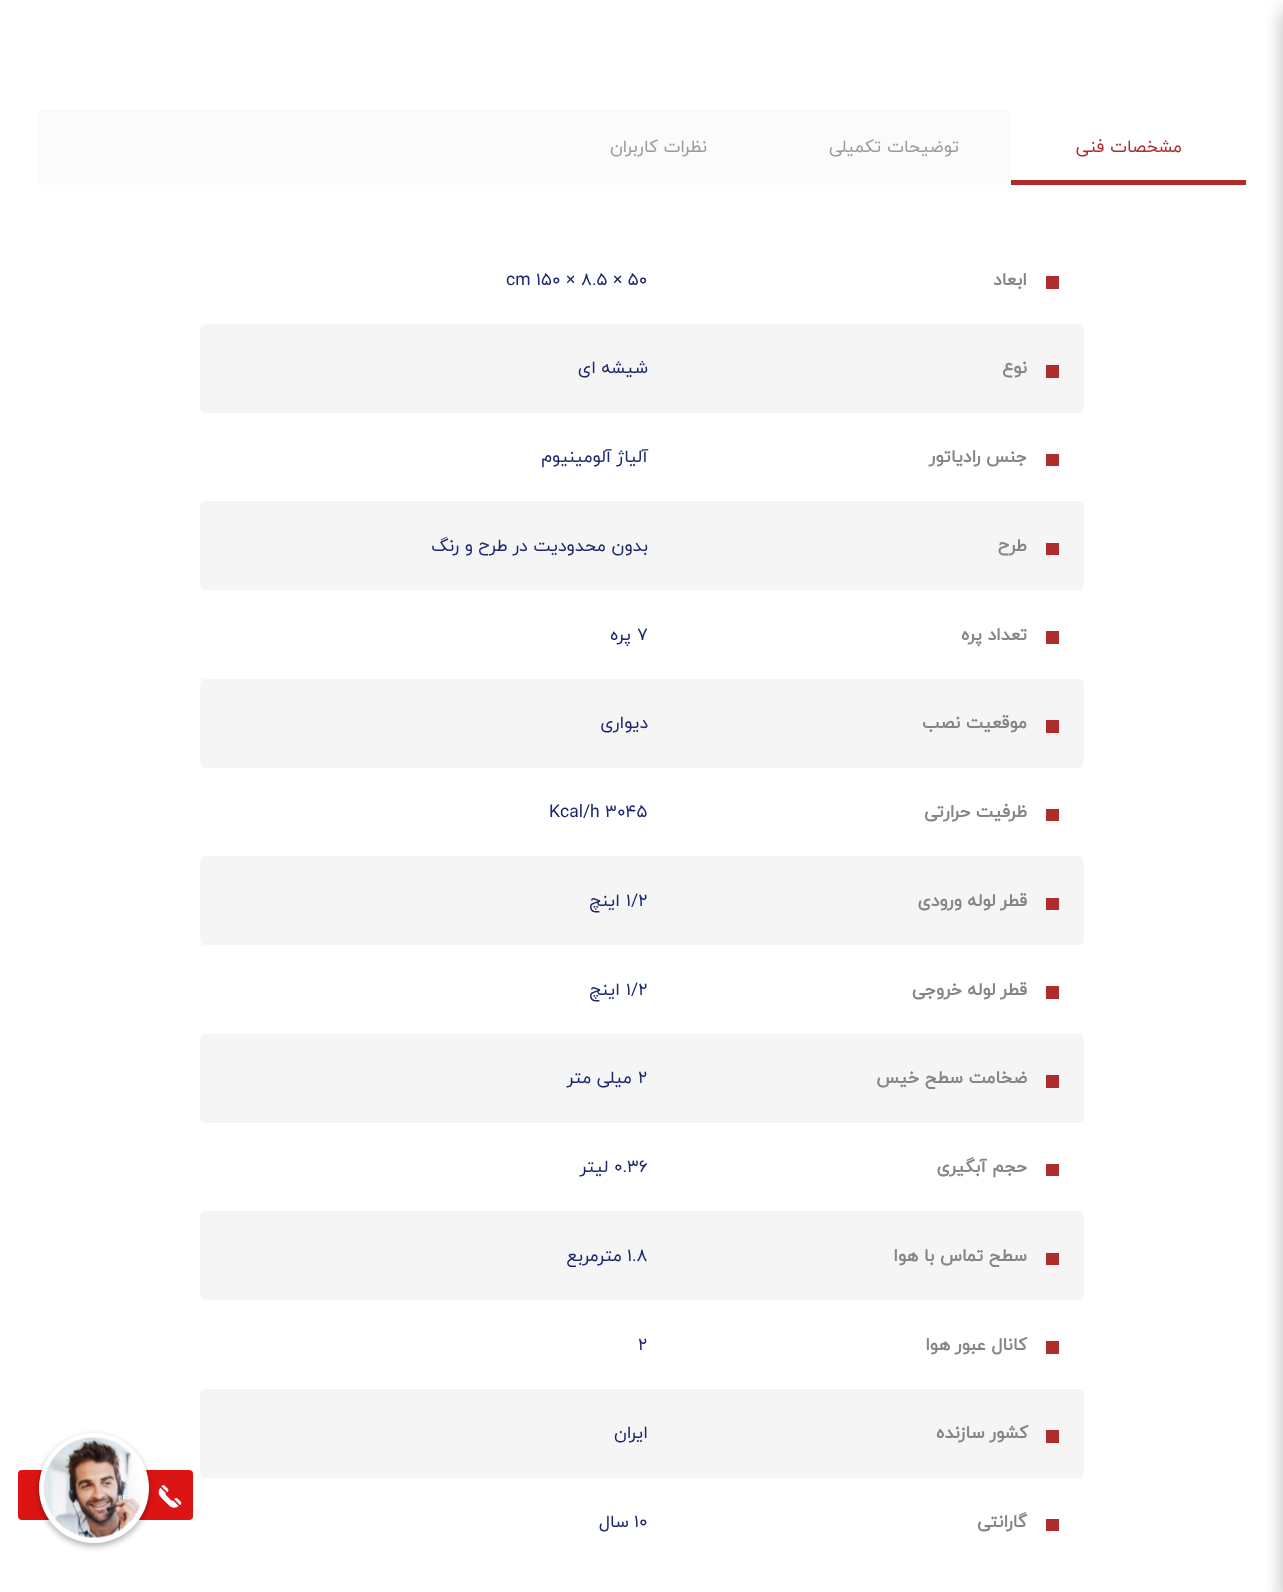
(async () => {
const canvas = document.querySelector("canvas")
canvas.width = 1283
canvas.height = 1592
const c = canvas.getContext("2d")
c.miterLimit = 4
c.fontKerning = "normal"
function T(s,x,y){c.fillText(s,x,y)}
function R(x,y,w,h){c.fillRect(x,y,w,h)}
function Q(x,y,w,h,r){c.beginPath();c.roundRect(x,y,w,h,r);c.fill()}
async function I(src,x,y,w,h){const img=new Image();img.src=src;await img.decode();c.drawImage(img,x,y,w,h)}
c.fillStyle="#fff"
R(0,0,1283,1592)
c.fillStyle="#0000004d"
c.filter="blur(10px)"
c.beginPath()
c.rect(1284,10,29,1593)
c.fill()
c.filter="none"
c.fillStyle="#fbfbfb"
R(38,110,973,75)
c.direction="rtl"
c.font="17.5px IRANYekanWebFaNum"
c.fillStyle="#ae2c2c"
T("مشخصات فنی",1182,152)
R(1011,180,235,5)
c.fillStyle="#9b9b9b"
T("توضیحات تکمیلی",959,152)
T("نظرات کاربران",707,152)
c.fillStyle="#ae2c2c"
R(1046,276,13,13)
c.font="bold 17.5px IRANYekanWebFaNum"
c.fillStyle="#858585"
T("ابعاد",1027,285)
c.direction="ltr"
c.font="17.5px IRANYekanWebFaNum"
c.fillStyle="#1c276d"
T("cm 150 × 8.5 × 50",506,285)
c.fillStyle="#f5f5f5"
Q(200,324,884,89,6)
c.fillStyle="#ae2c2c"
R(1046,365,13,13)
c.direction="rtl"
c.font="bold 17.5px IRANYekanWebFaNum"
c.fillStyle="#858585"
T("نوع",1027,373)
c.font="17.5px IRANYekanWebFaNum"
c.fillStyle="#1c276d"
T("شیشه ای",648,373)
c.fillStyle="#ae2c2c"
R(1046,454,13,12)
c.font="bold 17.5px IRANYekanWebFaNum"
c.fillStyle="#858585"
T("جنس رادیاتور",1027,462)
c.font="17.5px IRANYekanWebFaNum"
c.fillStyle="#1c276d"
T("آلیاژ آلومینیوم",648,462)
c.fillStyle="#f5f5f5"
Q(200,501,884,89,6)
c.fillStyle="#ae2c2c"
R(1046,543,13,12)
c.font="bold 17.5px IRANYekanWebFaNum"
c.fillStyle="#858585"
T("طرح",1027,551)
c.font="17.5px IRANYekanWebFaNum"
c.fillStyle="#1c276d"
T("بدون محدودیت در طرح و رنگ",648,551)
c.fillStyle="#ae2c2c"
R(1046,631,13,13)
c.font="bold 17.5px IRANYekanWebFaNum"
c.fillStyle="#858585"
T("تعداد پره",1027,640)
c.direction="ltr"
c.font="17.5px IRANYekanWebFaNum"
c.fillStyle="#1c276d"
T("7",637,640)
c.direction="rtl"
T("پره",631,640)
c.fillStyle="#f5f5f5"
Q(200,679,884,89,6)
c.fillStyle="#ae2c2c"
R(1046,720,13,13)
c.font="bold 17.5px IRANYekanWebFaNum"
c.fillStyle="#858585"
T("موقعیت نصب",1027,728)
c.font="17.5px IRANYekanWebFaNum"
c.fillStyle="#1c276d"
T("دیواری",648,728)
c.fillStyle="#ae2c2c"
R(1046,809,13,12)
c.font="bold 17.5px IRANYekanWebFaNum"
c.fillStyle="#858585"
T("ظرفیت حرارتی",1027,817)
c.direction="ltr"
c.font="17.5px IRANYekanWebFaNum"
c.fillStyle="#1c276d"
T("Kcal/h 3045",549,817)
c.fillStyle="#f5f5f5"
Q(200,856,884,89,6)
c.fillStyle="#ae2c2c"
R(1046,898,13,12)
c.direction="rtl"
c.font="bold 17.5px IRANYekanWebFaNum"
c.fillStyle="#858585"
T("قطر لوله ورودی",1027,906)
c.direction="ltr"
c.font="17.5px IRANYekanWebFaNum"
c.fillStyle="#1c276d"
T("1/2",626,906)
c.direction="rtl"
T("اینچ",620,906)
c.fillStyle="#ae2c2c"
R(1046,986,13,13)
c.font="bold 17.5px IRANYekanWebFaNum"
c.fillStyle="#858585"
T("قطر لوله خروجی",1027,995)
c.direction="ltr"
c.font="17.5px IRANYekanWebFaNum"
c.fillStyle="#1c276d"
T("1/2",626,995)
c.direction="rtl"
T("اینچ",620,995)
c.fillStyle="#f5f5f5"
Q(200,1034,884,89,6)
c.fillStyle="#ae2c2c"
R(1046,1075,13,13)
c.font="bold 17.5px IRANYekanWebFaNum"
c.fillStyle="#858585"
T("ضخامت سطح خیس",1027,1083)
c.direction="ltr"
c.font="17.5px IRANYekanWebFaNum"
c.fillStyle="#1c276d"
T("2",638,1083)
c.direction="rtl"
T("میلی متر",632,1083)
c.fillStyle="#ae2c2c"
R(1046,1164,13,12)
c.font="bold 17.5px IRANYekanWebFaNum"
c.fillStyle="#858585"
T("حجم آبگیری",1027,1172)
c.direction="ltr"
c.font="17.5px IRANYekanWebFaNum"
c.fillStyle="#1c276d"
T("0.36",614,1172)
c.direction="rtl"
T("لیتر",608,1172)
c.fillStyle="#f5f5f5"
Q(200,1211,884,89,6)
c.fillStyle="#ae2c2c"
R(1046,1253,13,12)
c.font="bold 17.5px IRANYekanWebFaNum"
c.fillStyle="#858585"
T("سطح تماس با هوا",1027,1261)
c.direction="ltr"
c.font="17.5px IRANYekanWebFaNum"
c.fillStyle="#1c276d"
T("1.8",627,1261)
c.direction="rtl"
T("مترمربع",622,1261)
c.fillStyle="#ae2c2c"
R(1046,1341,13,13)
c.font="bold 17.5px IRANYekanWebFaNum"
c.fillStyle="#858585"
T("کانال عبور هوا",1027,1350)
c.direction="ltr"
c.font="17.5px IRANYekanWebFaNum"
c.fillStyle="#1c276d"
T("2",638,1350)
c.fillStyle="#f5f5f5"
Q(200,1389,884,89,6)
c.fillStyle="#ae2c2c"
R(1046,1430,13,13)
c.direction="rtl"
c.font="bold 17.5px IRANYekanWebFaNum"
c.fillStyle="#858585"
T("کشور سازنده",1028,1438)
c.font="17.5px IRANYekanWebFaNum"
c.fillStyle="#1c276d"
T("ایران",648,1438)
c.fillStyle="#ae2c2c"
R(1046,1519,13,12)
c.font="bold 17.5px IRANYekanWebFaNum"
c.fillStyle="#858585"
T("گارانتی",1027,1527)
c.direction="ltr"
c.font="17.5px IRANYekanWebFaNum"
c.fillStyle="#1c276d"
T("10",634,1527)
c.direction="rtl"
T("سال",629,1527)
c.fillStyle="#dd1414"
Q(18,1470,175,50,4)
c.fillStyle="#0000004f"
c.filter="blur(3px)"
c.beginPath()
c.roundRect(39,1436,110,110,55)
c.fill()
c.filter="none"
c.fillStyle="#fff"
c.beginPath()
c.arc(94,1488,55,0,7)
c.fill()
await I("1.png",43,1437,100,101)
await I("2.png",158,1485,24,23)
})()
